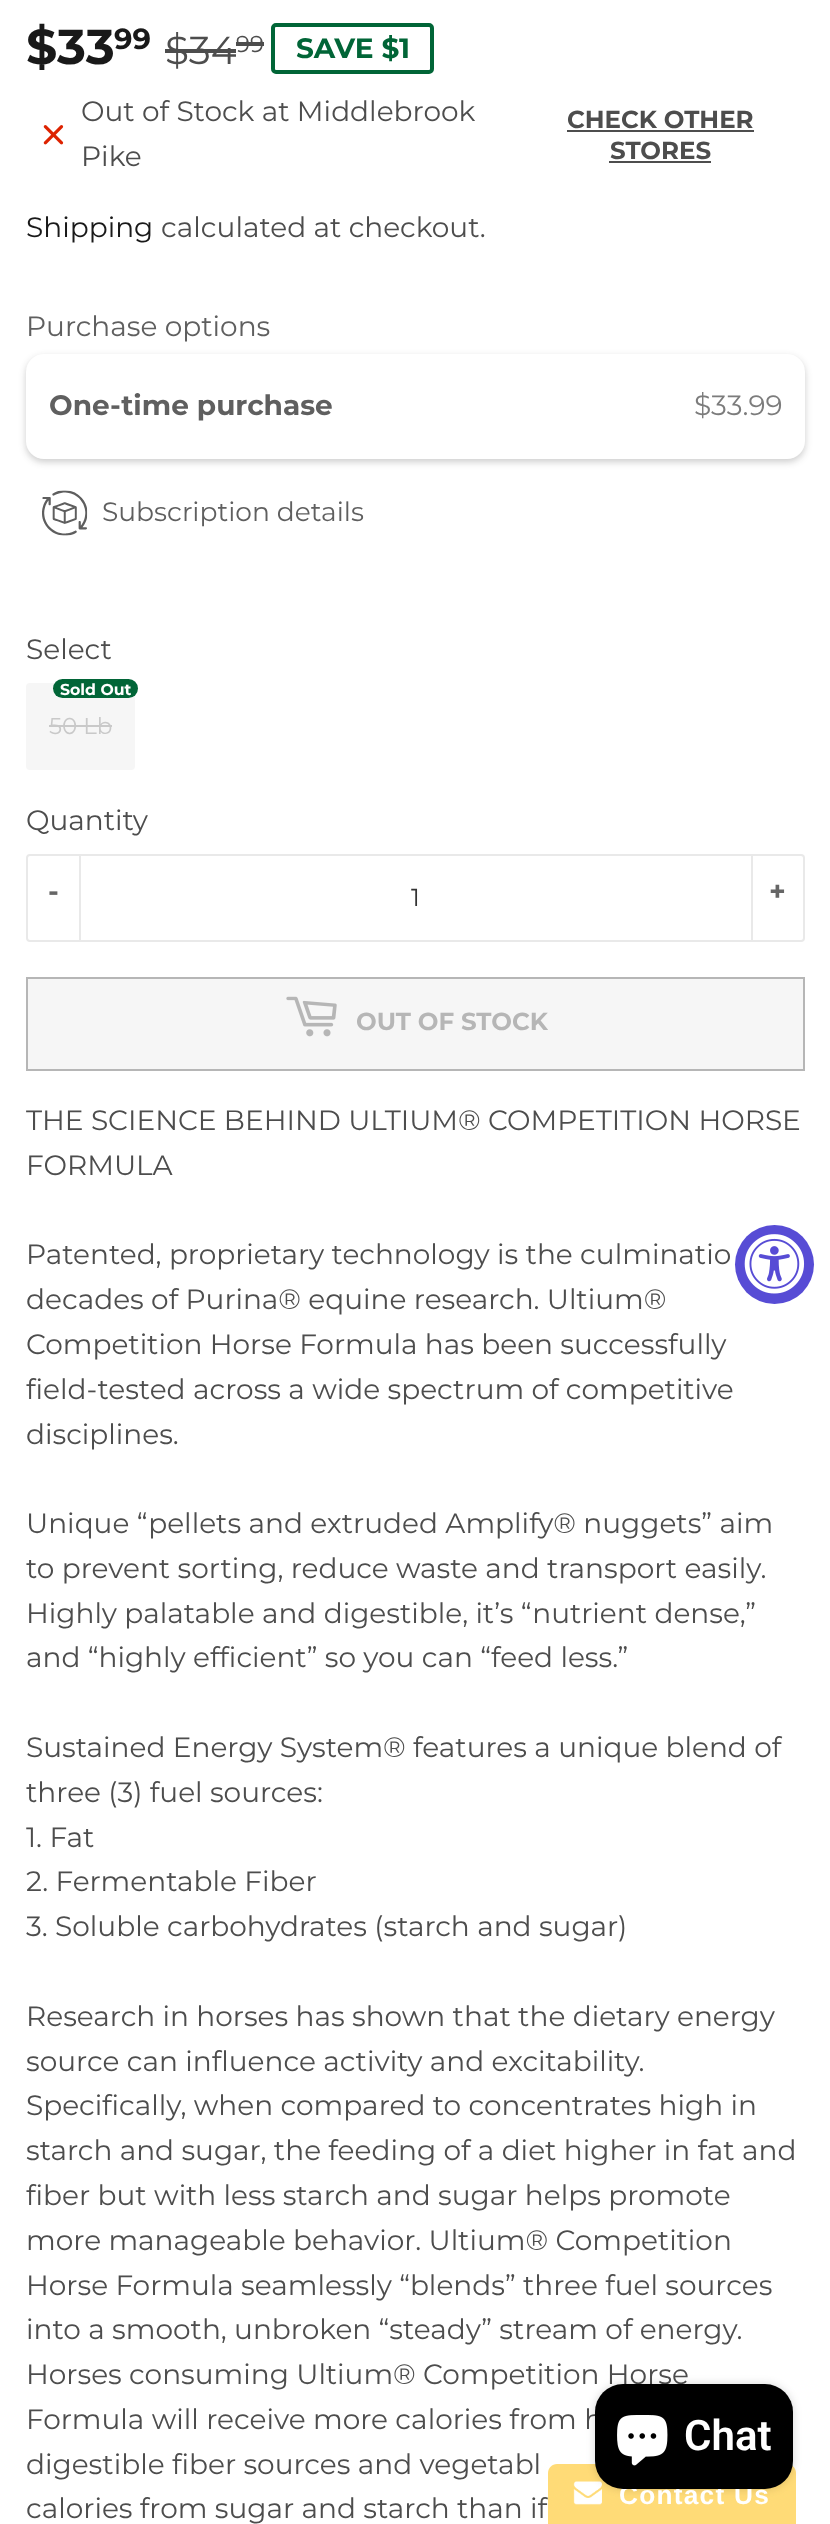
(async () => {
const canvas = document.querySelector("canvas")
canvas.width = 830
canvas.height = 2524
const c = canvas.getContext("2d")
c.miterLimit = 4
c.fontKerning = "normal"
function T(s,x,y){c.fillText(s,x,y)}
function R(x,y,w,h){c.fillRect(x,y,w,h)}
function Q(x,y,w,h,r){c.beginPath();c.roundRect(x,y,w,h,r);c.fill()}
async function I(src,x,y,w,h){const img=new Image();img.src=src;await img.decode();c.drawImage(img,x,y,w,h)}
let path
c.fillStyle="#fff"
R(0,0,830,2524)
c.font="bold 49px Montserrat"
c.fillStyle="#191919"
T("$33",26,64)
c.font="bold 29px Montserrat"
T("99",114,49)
c.font="39px Montserrat"
c.fillStyle="#4d4d4d"
T("$34",165,64)
R(165,49,71,4)
c.font="23px Montserrat"
T("99",236,52)
R(236,42,28,4)
c.beginPath()
c.roundRect(273,25,159,47,3)
c.strokeStyle="#016537"
c.lineWidth=4
c.stroke()
c.font="bold 28px Montserrat"
c.fillStyle="#016537"
T("SAVE $1",296,58)
await I("1.png",43,125,21,20)
c.font="28px Montserrat"
c.fillStyle="#4d4d4d"
T("Out of Stock at Middlebrook",81,121)
T("Pike",81,166)
c.font="bold 24.5px Montserrat"
T("CHECK OTHER",567,128)
R(567,130,187,2)
T("STORES",610,159)
R(609,161,102,2)
c.font="28px Montserrat"
c.fillStyle="#191919"
T("Shipping",26,237)
c.fillStyle="#4d4d4d"
T("calculated at checkout.",161,237)
c.fillStyle="#5f5f5f"
T("Purchase options",26,336)
c.fillStyle="#1a1a1a38"
c.filter="blur(3.5px)"
c.beginPath()
c.roundRect(26,357,779,105,18)
c.fill()
c.filter="none"
c.fillStyle="#fff"
Q(26,354,779,105,18)
c.font="bold 28px Montserrat"
c.fillStyle="#5f5f5f"
T("One-time purchase",49,415)
c.font="28px Montserrat"
c.fillStyle="#7c7c7c"
T("$33.99",694,415)
await I("2.png",42,490,46,46)
c.font="26.5px Montserrat"
c.fillStyle="#5f5f5f"
T("Subscription details",102,521)
c.font="28px Montserrat"
c.fillStyle="#4d4d4d"
T("Select",26,659)
c.fillStyle="#f6f6f6"
Q(26,683,109,87,4)
c.fillStyle="#016537"
Q(53,679,85,19,9.5)
c.font="bold 15.75px Montserrat"
c.fillStyle="#fff"
T("Sold Out",60,695)
c.font="23px Montserrat"
c.fillStyle="#c9c9c9"
T("50 Lb",49,734)
R(49,725,63,2)
c.font="28px Montserrat"
c.fillStyle="#4d4d4d"
T("Quantity",26,830)
c.beginPath()
c.roundRect(27,855,777,86,3)
c.strokeStyle="#e9e9e9"
c.lineWidth=2
c.stroke()
c.fillStyle="#e9e9e9"
R(79,856,2,84)
c.font="bold 28px Montserrat"
c.fillStyle="#666"
T("-",48,901)
c.font="24.5px Montserrat"
c.fillStyle="#333"
T("1",411,906)
c.fillStyle="#e9e9e9"
R(751,856,2,84)
c.font="bold 28px Montserrat"
c.fillStyle="#666"
T("+",769,901)
c.fillStyle="#f6f6f6"
c.beginPath()
c.rect(27,978,777,92)
c.fill()
c.strokeStyle="#b6b6b6"
c.stroke()
await I("3.png",286,996,51,41)
c.font="bold 24.5px Montserrat"
c.fillStyle="#b6b6b6"
T("OUT OF STOCK",356,1030)
c.font="28px Montserrat"
c.fillStyle="#4d4d4d"
T("THE SCIENCE BEHIND ULTIUM® COMPETITION HORSE",26,1130)
T("FORMULA",26,1175)
T("Patented, proprietary technology is the culminatio",26,1264)
T("decades of Purina® equine research. Ultium®",26,1309)
T("Competition Horse Formula has been successfully",26,1354)
T("field-tested across a wide spectrum of competitive",26,1399)
T("disciplines.",26,1444)
T("Unique “pellets and extruded Amplify® nuggets” aim",26,1533)
T("to prevent sorting, reduce waste and transport easily.",26,1578)
T("Highly palatable and digestible, it’s “nutrient dense,”",26,1623)
T("and “highly efficient” so you can “feed less.”",26,1667)
T("Sustained Energy System® features a unique blend of",26,1757)
T("three (3) fuel sources:",26,1802)
T("1. Fat",26,1847)
T("2. Fermentable Fiber",26,1891)
T("3. Soluble carbohydrates (starch and sugar)",26,1936)
T("Research in horses has shown that the dietary energy",26,2026)
T("source can influence activity and excitability.",26,2071)
T("Specifically, when compared to concentrates high in",26,2115)
T("starch and sugar, the feeding of a diet higher in fat and",26,2160)
T("fiber but with less starch and sugar helps promote",26,2205)
T("more manageable behavior. Ultium® Competition",26,2250)
T("Horse Formula seamlessly “blends” three fuel sources",26,2295)
T("into a smooth, unbroken “steady” stream of energy.",26,2339)
T("Horses consuming Ultium® Competition Horse",26,2384)
T("Formula will receive more calories from h",26,2429)
T("digestible fiber sources and vegetabl",26,2474)
T("calories from sugar and starch than if",26,2518)
c.fillStyle="#574cd5"
c.beginPath()
c.arc(774.5,1264.5,39.5,0,7)
c.fill()
await I("4.png",744,1234,61,60)
c.fillStyle="#ffdb77"
path = new Path2D("M557 2464h230c5 0 9 4 9 9v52h-248v-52c0-5 4-9 9-9z")
c.fill(path)
await I("6.png",573,2481,29,24)
c.fillStyle="#00000026"
c.filter="blur(4.5px)"
c.beginPath()
c.roundRect(595,2384,198,105,28)
c.fill()
c.filter="none"
c.letterSpacing="1.25px"
c.font="bold 26.25px Liberation Sans"
c.fillStyle="#fff"
T("Contact Us",619,2504)
c.fillStyle="#000"
Q(595,2384,198,105,28)
await I("5.png",617,2415,51,51)
c.letterSpacing="0px"
c.font="600 42px Roboto"
c.fillStyle="#fff"
T("Chat",684,2450)
})()
